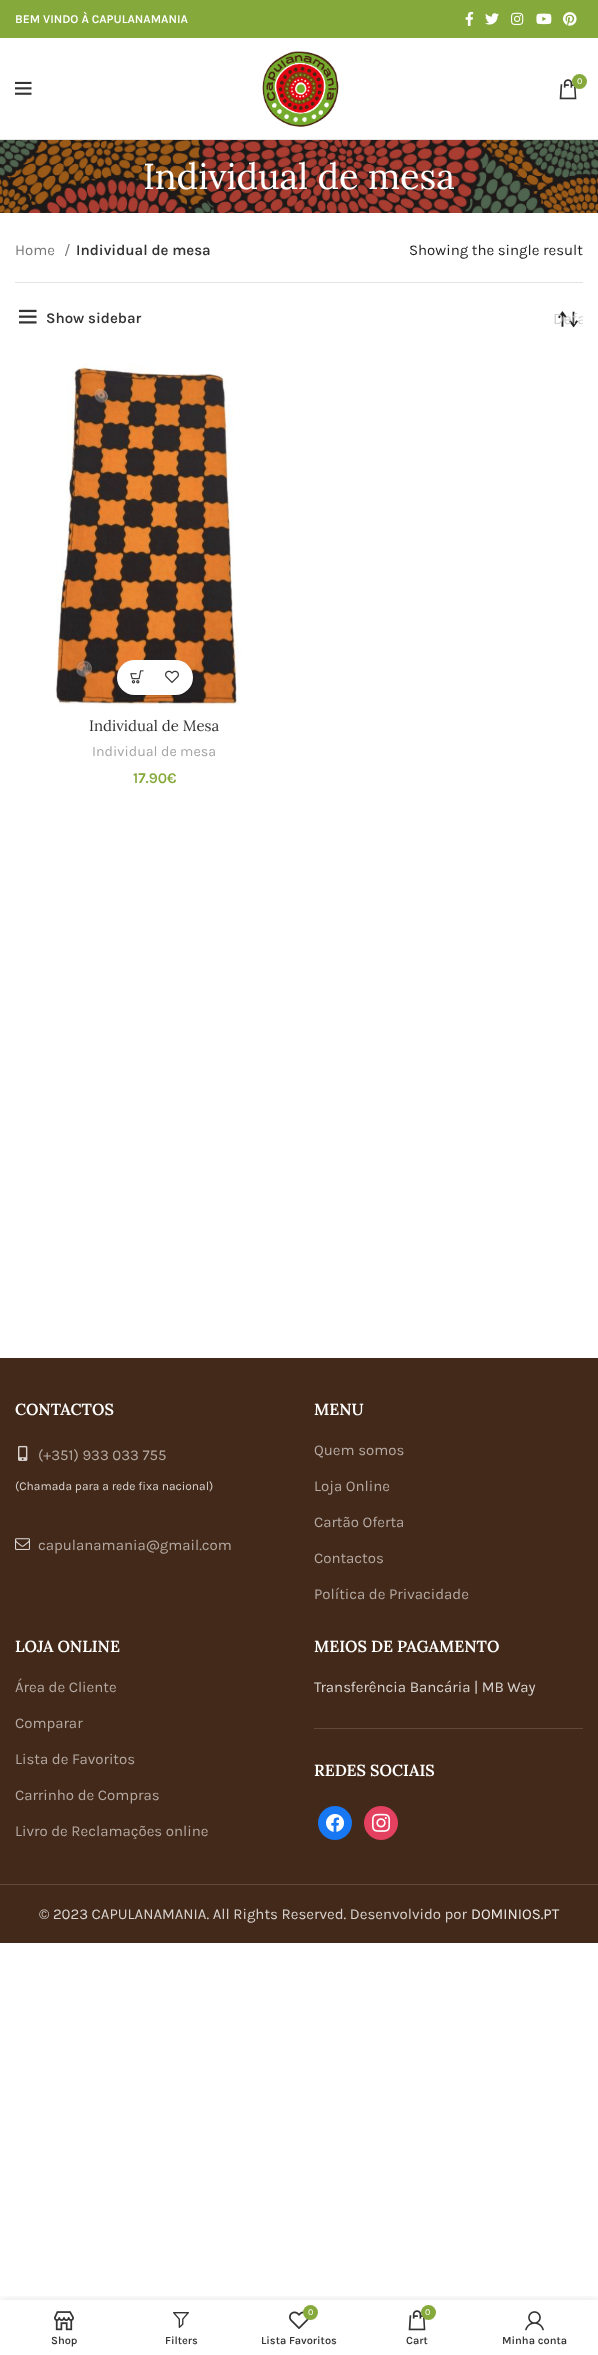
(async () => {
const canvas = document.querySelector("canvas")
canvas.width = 598
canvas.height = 2355
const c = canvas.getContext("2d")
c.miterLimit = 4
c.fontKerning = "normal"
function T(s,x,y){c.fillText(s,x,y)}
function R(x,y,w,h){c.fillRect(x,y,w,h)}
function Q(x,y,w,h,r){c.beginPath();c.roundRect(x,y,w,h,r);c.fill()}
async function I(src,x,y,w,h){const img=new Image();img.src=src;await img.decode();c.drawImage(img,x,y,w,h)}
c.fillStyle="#fff"
R(0,0,598,2355)
c.fillStyle="#86a93c"
R(0,0,598,38)
c.font="600 12px Karla"
c.fillStyle="#fff"
T("BEM VINDO À CAPULANAMANIA",15,23)
await I("1.png",465,11,9,15)
await I("2.png",485,13,14,12)
await I("3.png",511,12,13,13)
await I("4.png",536,13,16,12)
await I("5.png",563,12,14,14)
c.fillStyle="#e8e8e8"
R(0,139,598,1)
await I("6.png",15,81,17,14)
await I("7.png",262,51,77,76)
await I("8.png",559,79,18,21)
c.fillStyle="#86a93c"
c.beginPath()
c.arc(579.5,81.5,7.5,0,7)
c.fill()
c.font="9px Karla"
c.fillStyle="#fff"
T("0",577,84)
await I("9.png",0,140,598,73)
c.font="36px Lora"
T("Individual de mesa",143,189)
c.fillStyle="#e4e4e4"
R(15,282,568,1)
c.font="15px Karla"
c.fillStyle="#777"
T("Home",15,255)
T("/",64,255)
c.font="600 15px Karla"
c.fillStyle="#333"
T("Individual de mesa",76,255)
c.font="15px Karla"
c.fillStyle="#1e1e1e"
T("Showing the single result",409,255)
await I("10.png",19,309,18,15)
c.font="600 15px Karla"
c.fillStyle="#333"
T("Show sidebar",46,323)
await I("11.png",558,311,20,17)
c.save()
c.beginPath()
c.rect(553,309,30,19)
c.clip()
c.font="16px Karla"
c.fillStyle="#cfcfcf"
T("Defa",553,324)
c.restore()
await I("12.png",55,363,186,342)
c.fillStyle="#0000001a"
c.filter="blur(0.5px)"
c.beginPath()
c.roundRect(118,661,76,35,17.5)
c.fill()
c.filter="none"
c.fillStyle="#fff"
Q(117,660,76,35,17.5)
await I("13.png",130,670,14,14)
await I("14.png",165,670,14,13)
c.font="15px Lora"
c.fillStyle="#333"
T("Individual de Mesa",89,731)
c.font="14.25px Karla"
c.fillStyle="#a5a5a5"
T("Individual de mesa",92,756)
c.font="600 15px Karla"
c.fillStyle="#86a93c"
T("17.90€",133,783)
c.fillStyle="#432919"
R(0,1358,598,585)
c.font="600 16px Lora"
c.fillStyle="#fff"
T("CONTACTOS",15,1415)
await I("15.png",18,1445,10,16)
c.font="15px Karla"
c.fillStyle="#b4a9a3"
T("(+351) 933 033 755",38,1460)
c.font="12px Karla"
c.fillStyle="#d9d4d1"
T("(Chamada para a rede fixa nacional)",15,1490)
await I("16.png",15,1538,15,12)
c.font="15px Karla"
c.fillStyle="#b4a9a3"
T("capulanamania@gmail.com",38,1550)
c.font="600 16px Lora"
c.fillStyle="#fff"
T("MENU",314,1415)
c.font="15px Karla"
c.fillStyle="#b4a9a3"
T("Quem somos",314,1455)
T("Loja Online",314,1491)
T("Cartão Oferta",314,1527)
T("Contactos",314,1563)
T("Política de Privacidade",314,1599)
c.font="600 16px Lora"
c.fillStyle="#fff"
T("LOJA ONLINE",15,1652)
c.font="15px Karla"
c.fillStyle="#b4a9a3"
T("Área de Cliente",15,1692)
T("Comparar",15,1728)
T("Lista de Favoritos",15,1764)
T("Carrinho de Compras",15,1800)
T("Livro de Reclamações online",15,1836)
c.fillStyle="#5f493c"
R(314,1728,269,1)
c.font="600 16px Lora"
c.fillStyle="#fff"
T("MEIOS DE PAGAMENTO",314,1652)
c.font="15px Karla"
c.fillStyle="#d9d4d1"
T("Transferência Bancária | MB Way",314,1692)
c.font="600 16px Lora"
c.fillStyle="#fff"
T("REDES SOCIAIS",314,1776)
c.fillStyle="#1877f2"
c.beginPath()
c.arc(335,1823,17,0,7)
c.fill()
await I("17.png",326,1814,18,18)
c.fillStyle="#e4405f"
c.beginPath()
c.arc(381,1823,17,0,7)
c.fill()
await I("18.png",372,1813,18,19)
c.fillStyle="#5f493c"
R(0,1884,598,1)
c.font="15px Karla"
c.fillStyle="#d9d4d1"
T("© 2023 CAPULANAMANIA. All Rights Reserved. Desenvolvido por",39,1919)
c.fillStyle="#eceae8"
T("DOMINIOS.PT",471,1919)
c.save()
c.beginPath()
c.rect(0,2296,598,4)
c.clip()
c.fillStyle="#0000001f"
c.filter="blur(4.5px)"
c.beginPath()
c.rect(0,2300,598,55)
c.fill()
c.filter="none"
c.restore()
await I("19.png",54,2311,20,20)
c.font="600 11px Karla"
c.fillStyle="#333"
T("Shop",51,2344)
await I("20.png",173,2312,16,16)
T("Filters",165,2344)
await I("21.png",289,2311,20,18)
c.fillStyle="#86a93c"
c.beginPath()
c.arc(310.5,2312.5,7.5,0,7)
c.fill()
c.font="9px Karla"
c.fillStyle="#fff"
T("0",308,2315)
c.font="600 11px Karla"
c.fillStyle="#333"
T("Lista Favoritos",261,2344)
await I("8.png",408,2310,18,21)
c.fillStyle="#86a93c"
c.beginPath()
c.arc(428.5,2312.5,7.5,0,7)
c.fill()
c.font="9px Karla"
c.fillStyle="#fff"
T("0",425,2315)
c.font="600 11px Karla"
c.fillStyle="#333"
T("Cart",406,2344)
await I("22.png",525,2311,19,20)
T("Minha conta",502,2344)
})()
